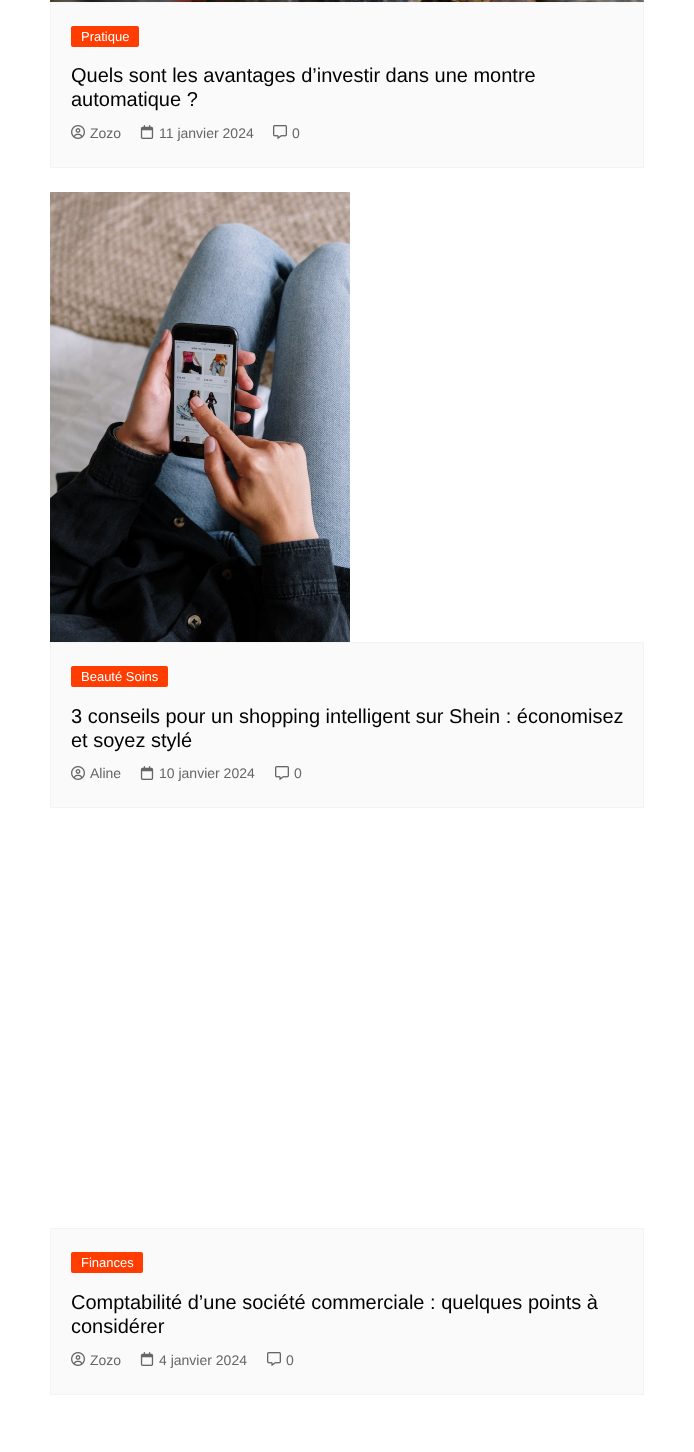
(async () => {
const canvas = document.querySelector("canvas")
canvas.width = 694
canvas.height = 1452
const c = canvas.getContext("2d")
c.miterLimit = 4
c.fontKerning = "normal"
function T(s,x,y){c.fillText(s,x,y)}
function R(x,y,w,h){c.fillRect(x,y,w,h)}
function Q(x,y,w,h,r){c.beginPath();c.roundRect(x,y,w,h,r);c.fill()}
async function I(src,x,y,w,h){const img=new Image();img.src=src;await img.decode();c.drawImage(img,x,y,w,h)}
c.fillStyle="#fff"
R(0,0,694,1452)
await I("1.png",50,0,594,2)
c.fillStyle="#fafafa"
c.beginPath()
c.rect(50.5,2.5,593,165)
c.fill()
c.strokeStyle="#f3f3f3"
c.stroke()
c.fillStyle="#ff3d00"
Q(71,26,68,21,2)
c.font="13px Liberation Sans"
c.fillStyle="#fff"
T("Pratique",81,41)
c.font="20px Liberation Sans"
c.fillStyle="#010101"
T("Quels sont les avantages d’investir dans une montre",71,82)
T("automatique ?",71,106)
await I("2.png",71,125,14,14)
c.font="14px Liberation Sans"
c.fillStyle="#666"
T("Zozo",90,138)
await I("3.png",140,125,14,14)
T("11 janvier 2024",159,138)
await I("4.png",273,125,14,14)
T("0",292,138)
await I("5.png",50,192,300,450)
c.fillStyle="#fafafa"
c.beginPath()
c.rect(50.5,642.5,593,165)
c.fill()
c.stroke()
c.fillStyle="#ff3d00"
Q(71,666,97,21,2)
c.font="13px Liberation Sans"
c.fillStyle="#fff"
T("Beauté Soins",81,681)
c.font="20px Liberation Sans"
c.fillStyle="#010101"
T("3 conseils pour un shopping intelligent sur Shein : économisez",71,723)
T("et soyez stylé",71,747)
await I("2.png",71,766,14,14)
c.font="14px Liberation Sans"
c.fillStyle="#666"
T("Aline",90,778)
await I("3.png",140,766,14,14)
T("10 janvier 2024",159,778)
await I("4.png",275,766,14,14)
T("0",294,778)
c.fillStyle="#fafafa"
c.beginPath()
c.rect(50.5,1228.5,593,166)
c.fill()
c.stroke()
c.fillStyle="#ff3d00"
Q(71,1252,72,21,2)
c.font="13px Liberation Sans"
c.fillStyle="#fff"
T("Finances",81,1267)
c.font="20px Liberation Sans"
c.fillStyle="#010101"
T("Comptabilité d’une société commerciale : quelques points à",71,1309)
T("considérer",71,1333)
await I("2.png",71,1352,14,14)
c.font="14px Liberation Sans"
c.fillStyle="#666"
T("Zozo",90,1365)
await I("3.png",140,1352,14,14)
T("4 janvier 2024",159,1365)
await I("4.png",267,1352,14,14)
T("0",286,1365)
})()
